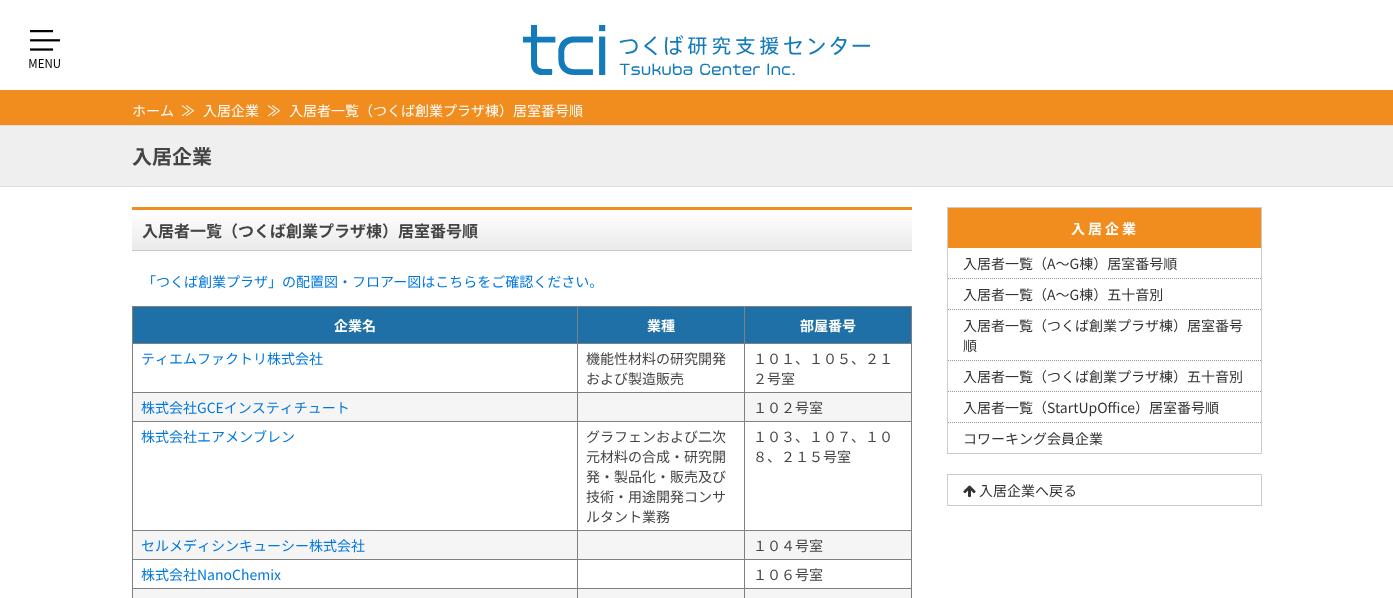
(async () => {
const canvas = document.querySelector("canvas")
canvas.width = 1393
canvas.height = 598
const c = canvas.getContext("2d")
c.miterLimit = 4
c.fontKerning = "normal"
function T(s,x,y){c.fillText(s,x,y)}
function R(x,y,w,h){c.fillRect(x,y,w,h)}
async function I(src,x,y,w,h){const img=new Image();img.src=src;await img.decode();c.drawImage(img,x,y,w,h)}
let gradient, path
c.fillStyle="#fff"
R(0,0,1393,598)
await I("1.png",29,30,31,38)
await I("2.png",523,25,347,50)
c.fillStyle="#f18d1e"
R(0,90,1393,35)
c.font="14px Noto Sans JP"
c.fillStyle="#fff"
T("ホーム",132,116)
T("≫",181,116)
T("入居企業",203,116)
T("≫",267,116)
T("入居者一覧（つくば創業プラザ棟）居室番号順",289,116)
c.fillStyle="#efefef"
R(0,126,1393,60)
c.fillStyle="#ddd"
R(0,125,1393,1)
R(0,186,1393,1)
c.font="bold 20px Noto Sans JP"
c.fillStyle="#444"
T("入居企業",132,164)
gradient = c.createLinearGradient(522,210,522,250)
gradient.addColorStop(0,"#fff")
gradient.addColorStop(1,"#eaeaea")
c.fillStyle = gradient
R(132,215,780,35)
c.fillStyle="#f18d1e"
R(132,207,780,3)
c.fillStyle="#c6c6c6"
R(132,250,780,1)
c.font="bold 16px Noto Sans JP"
c.fillStyle="#444"
T("入居者一覧（つくば創業プラザ棟）居室番号順",142,237)
c.font="14px Noto Sans JP"
c.fillStyle="#07d"
T("「つくば創業プラザ」の配置図・フロアー図はこちらをご確認ください。",142,287)
c.fillStyle="#808080"
R(132,306,780,1)
R(911,306,1,292)
R(132,306,1,292)
c.fillStyle="#1e70a6"
R(133,307,444,36)
c.font="bold 14px Noto Sans JP"
c.fillStyle="#fff"
T("企業名",334,331)
c.fillStyle="#1e70a6"
R(578,307,166,36)
c.fillStyle="#808080"
R(744,343,168,1)
R(744,392,168,1)
c.fillStyle="#f5f5f5"
R(133,393,778,28)
c.fillStyle="#808080"
R(744,421,168,1)
R(744,530,168,1)
c.fillStyle="#f5f5f5"
R(133,531,778,28)
c.fillStyle="#808080"
R(744,559,168,1)
R(744,588,168,1)
c.fillStyle="#f5f5f5"
R(133,589,778,9)
c.fillStyle="#808080"
R(744,588,1,10)
R(577,588,168,1)
R(744,559,1,30)
R(577,559,168,1)
R(744,530,1,30)
R(577,530,168,1)
R(744,421,1,110)
R(577,421,168,1)
R(744,392,1,30)
R(577,392,168,1)
R(744,343,1,50)
R(577,343,168,1)
R(577,588,1,10)
R(132,588,446,1)
R(577,559,1,30)
R(132,559,446,1)
R(577,530,1,30)
R(132,530,446,1)
R(577,421,1,110)
R(132,421,446,1)
R(577,392,1,30)
R(132,392,446,1)
R(577,343,1,50)
R(132,343,446,1)
R(577,306,1,38)
c.fillStyle="#fff"
T("業種",647,331)
c.fillStyle="#1e70a6"
R(745,307,166,36)
c.fillStyle="#808080"
R(744,306,1,38)
c.fillStyle="#fff"
T("部屋番号",800,331)
c.font="14px Noto Sans JP"
c.fillStyle="#07d"
T("ティエムファクトリ株式会社",141,364)
c.fillStyle="#444"
T("機能性材料の研究開発",586,364)
T("および製造販売",586,384)
T("１０１、１０５、２１",753,364)
T("２号室",753,384)
c.fillStyle="#07d"
T("株式会社GCEインスティチュート",141,413)
c.fillStyle="#444"
T("１０２号室",753,413)
c.fillStyle="#07d"
T("株式会社エアメンブレン",141,442)
c.fillStyle="#444"
T("グラフェンおよび二次",586,442)
T("元材料の合成・研究開",586,462)
T("発・製品化・販売及び",586,482)
T("技術・用途開発コンサ",586,502)
T("ルタント業務",586,522)
T("１０３、１０７、１０",753,442)
T("８、２１５号室",753,462)
c.fillStyle="#07d"
T("セルメディシンキューシー株式会社",141,551)
c.fillStyle="#444"
T("１０４号室",753,551)
c.fillStyle="#07d"
T("株式会社NanoChemix",141,580)
c.fillStyle="#444"
T("１０６号室",753,580)
c.fillStyle="#f18d1e"
R(948,208,313,40)
c.fillStyle="#ccc"
R(947,207,315,1)
R(1261,207,1,247)
R(947,207,1,41)
c.letterSpacing="3px"
c.font="bold 14px Noto Sans JP"
c.fillStyle="#fff"
T("入居企業",1071,234)
c.fillStyle="#ccc"
R(947,453,315,1)
R(947,248,1,206)
path = new Path2D("M948 278.5h313")
c.strokeStyle="#999"
c.setLineDash([1,1])
c.stroke(path)
c.letterSpacing="0px"
c.font="14px Noto Sans JP"
c.fillStyle="#333"
T("入居者一覧（A～G棟）居室番号順",963,269)
path = new Path2D("M948 309.5h313")
c.stroke(path)
T("入居者一覧（A～G棟）五十音別",963,300)
path = new Path2D("M948 360.5h313")
c.stroke(path)
T("入居者一覧（つくば創業プラザ棟）居室番号",963,331)
T("順",963,351)
path = new Path2D("M948 391.5h313")
c.stroke(path)
T("入居者一覧（つくば創業プラザ棟）五十音別",963,382)
path = new Path2D("M948 422.5h313")
c.stroke(path)
T("入居者一覧（StartUpOffice）居室番号順",963,413)
T("コワーキング会員企業",963,444)
c.strokeStyle="#ccc"
c.setLineDash([])
c.strokeRect(947.5,474.5,314,31)
await I("3.png",963,485,13,12)
T("入居企業へ戻る",979,496)
})()
